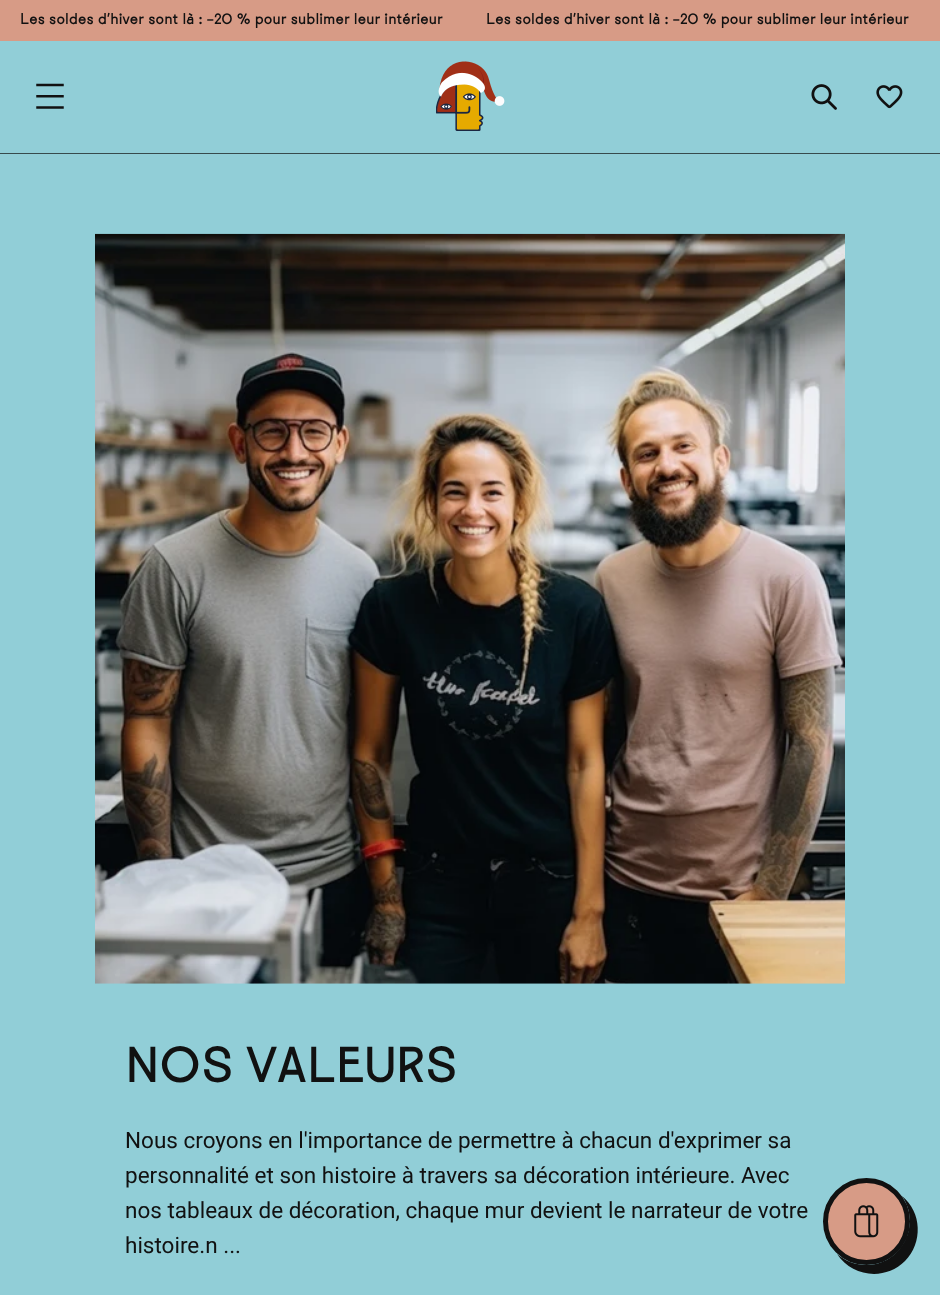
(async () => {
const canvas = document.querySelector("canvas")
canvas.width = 940
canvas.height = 1295
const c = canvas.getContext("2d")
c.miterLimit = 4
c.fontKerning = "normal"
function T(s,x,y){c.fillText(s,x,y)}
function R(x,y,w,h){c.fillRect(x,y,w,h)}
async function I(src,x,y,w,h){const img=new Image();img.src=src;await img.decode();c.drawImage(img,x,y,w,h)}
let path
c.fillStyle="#91ced7"
R(0,0,940,1295)
c.fillStyle="#d79b86"
R(0,0,940,41)
c.font="bold 14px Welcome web"
c.fillStyle="#111"
T("Les soldes d’hiver sont là : –20 % pour sublimer leur intérieur",20,24)
T("Les soldes d’hiver sont là : –20 % pour sublimer leur intérieur",486,24)
c.fillStyle="#374a4c"
R(0,153,940,1)
await I("1.png",36,83,28,26)
await I("2.png",436,61,69,70)
await I("3.png",811,84,26,26)
await I("4.png",876,85,27,24)
await I("5.png",95,233,750,751)
c.font="bold 45px Welcome web"
c.fillStyle="#111"
T("NOS VALEURS",125,1082)
c.font="22.5px Roboto"
T("Nous croyons en l'importance de permettre à chacun d'exprimer sa",125,1148)
T("personnalité et son histoire à travers sa décoration intérieure. Avec",125,1183)
T("nos tableaux de décoration, chaque mur devient le narrateur de votre",125,1218)
T("histoire.n ...",125,1253)
path = new Path2D("M837 1254c15 23 48 27 68 7c18-18 17-49-3-65c12 17 10 41-5 56c-16 17-43 17-60 2z")
c.fill(path)
c.fillStyle="#d79b86"
c.beginPath()
c.arc(866.5,1221.5,41,0,7)
c.fill()
c.strokeStyle="#111"
c.lineWidth=5
c.stroke()
await I("6.png",854,1205,25,33)
})()
